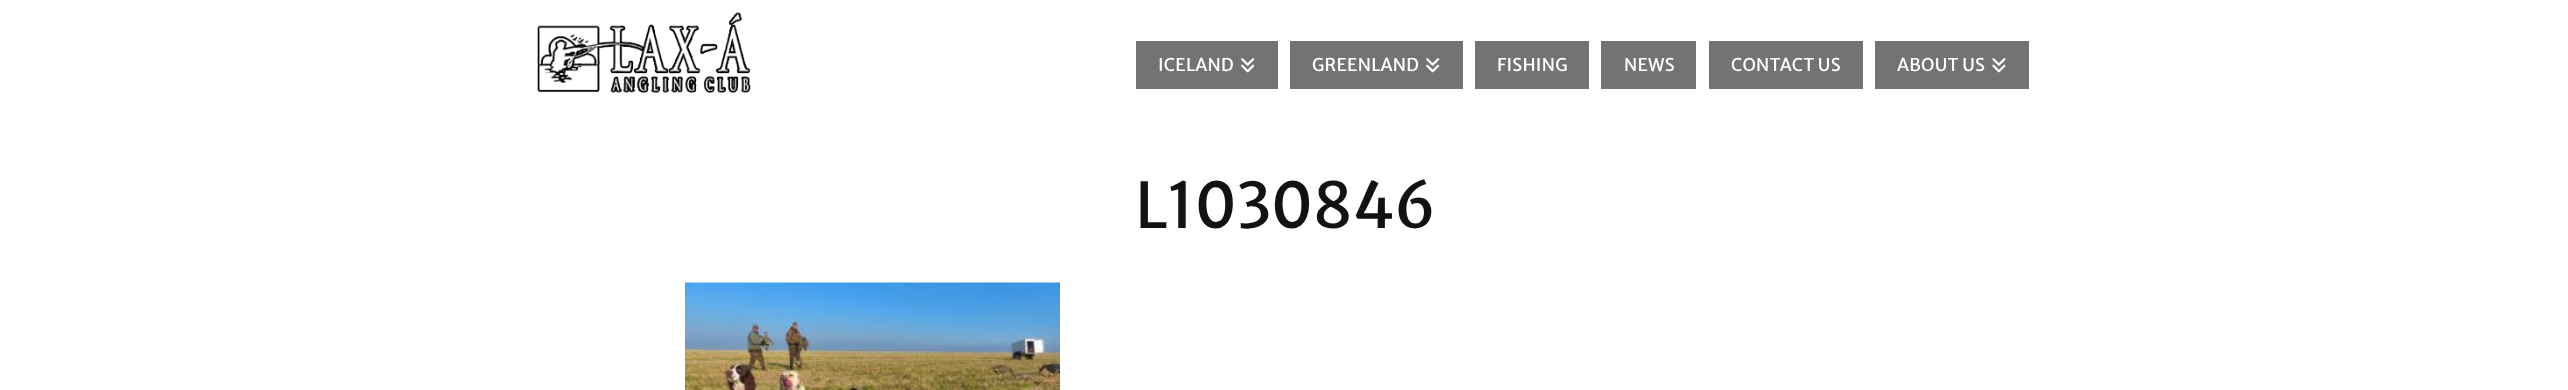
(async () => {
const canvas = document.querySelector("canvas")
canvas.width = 2568
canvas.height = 390
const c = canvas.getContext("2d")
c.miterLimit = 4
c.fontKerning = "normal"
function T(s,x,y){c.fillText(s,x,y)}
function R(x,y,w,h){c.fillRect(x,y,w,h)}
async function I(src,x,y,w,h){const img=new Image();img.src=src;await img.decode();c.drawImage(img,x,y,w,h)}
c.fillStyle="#fff"
R(0,0,2568,390)
await I("1.png",537,12,214,81)
c.fillStyle="#737373"
R(1136,41,142,48)
c.letterSpacing="0.25px"
c.font="17.5px Merriweather Sans"
c.fillStyle="#fff"
T("ICELAND",1158,71)
await I("2.png",1241,58,14,15)
c.fillStyle="#737373"
R(1290,41,173,48)
c.fillStyle="#fff"
T("GREENLAND",1312,71)
await I("2.png",1426,58,14,15)
c.fillStyle="#737373"
R(1475,41,114,48)
c.fillStyle="#fff"
T("FISHING",1497,71)
c.fillStyle="#737373"
R(1601,41,95,48)
c.fillStyle="#fff"
T("NEWS",1624,71)
c.fillStyle="#737373"
R(1709,41,154,48)
c.fillStyle="#fff"
T("CONTACT US",1731,71)
c.fillStyle="#737373"
R(1875,41,154,48)
c.fillStyle="#fff"
T("ABOUT US",1897,71)
await I("3.png",1992,58,14,15)
c.letterSpacing="-1px"
c.font="63px Merriweather Sans"
c.fillStyle="#121212"
T("L1030846",1135,228)
await I("4.png",685,282,375,108)
})()
